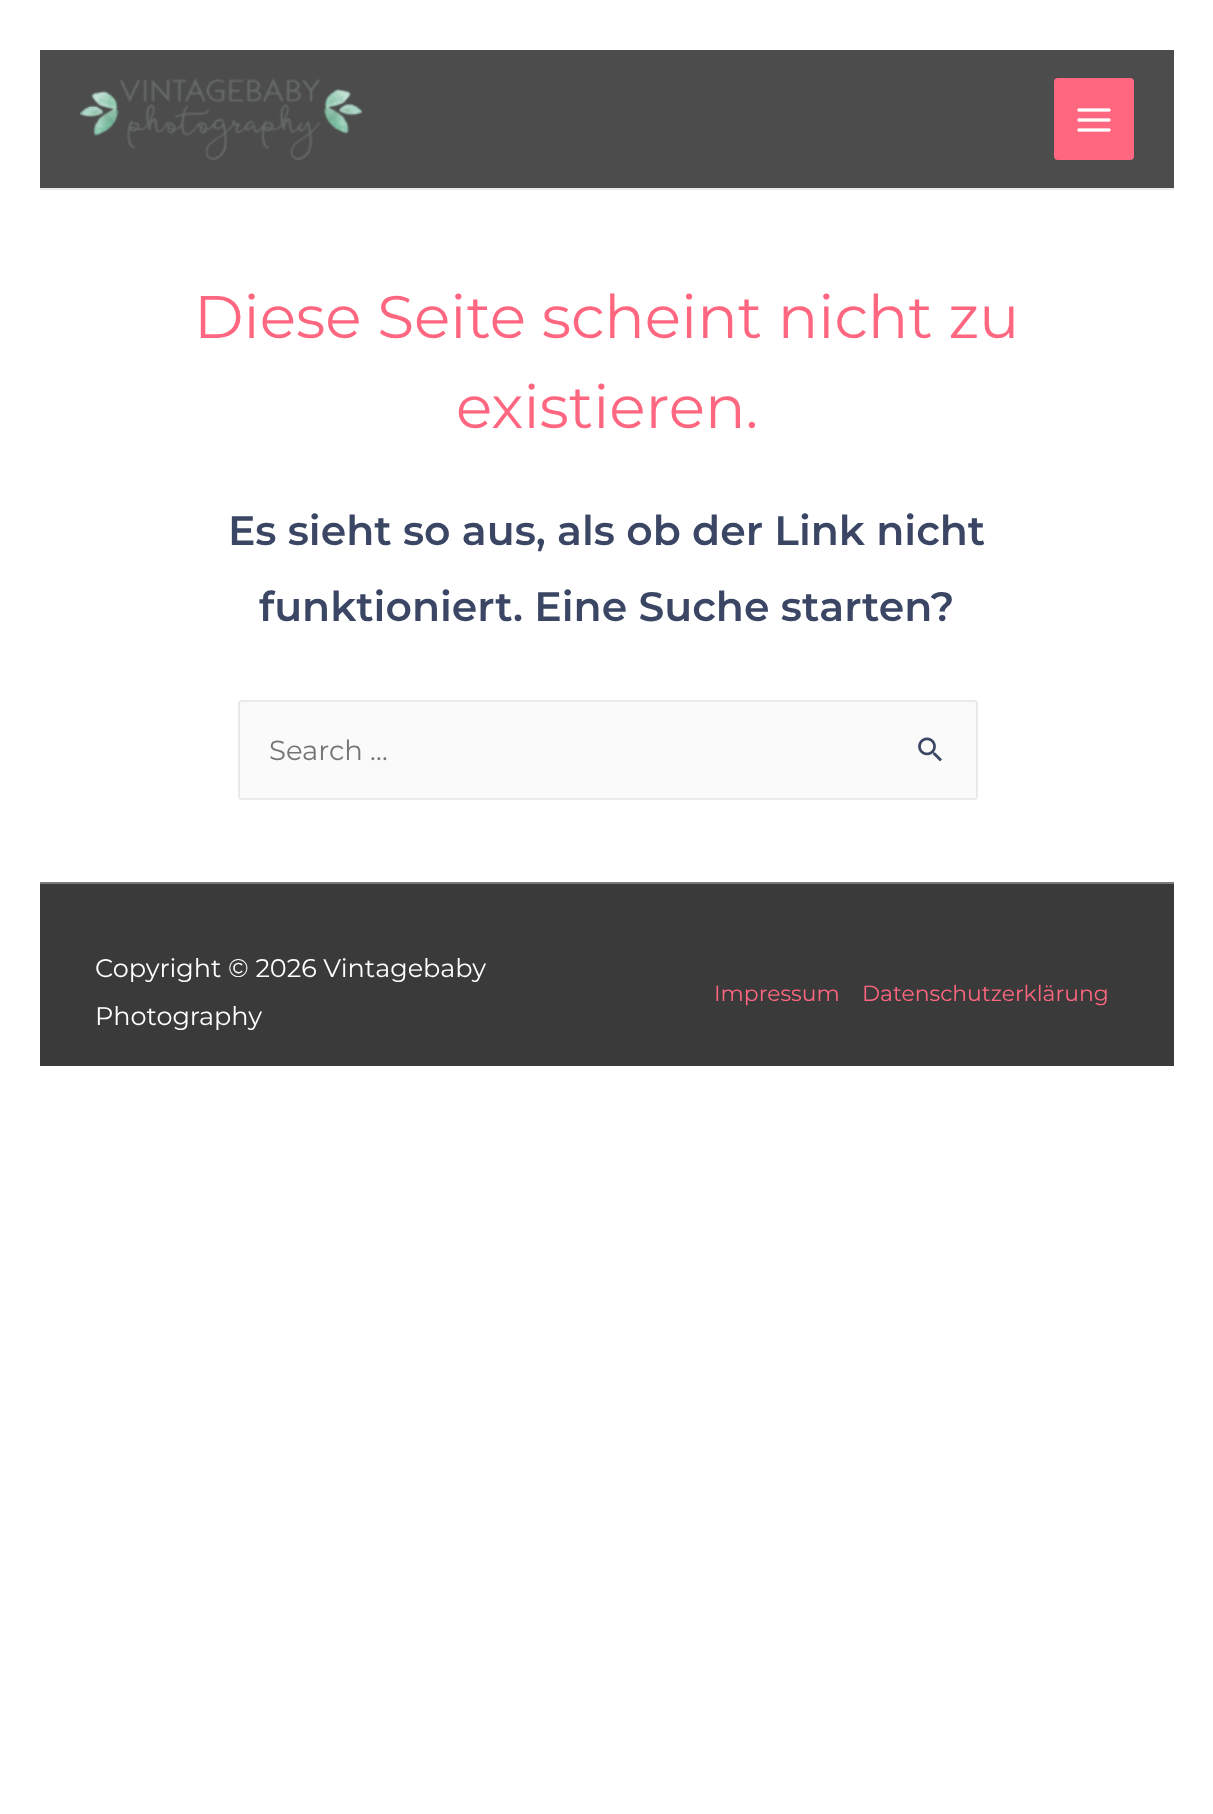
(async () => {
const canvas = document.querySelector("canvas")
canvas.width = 1213
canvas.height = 1814
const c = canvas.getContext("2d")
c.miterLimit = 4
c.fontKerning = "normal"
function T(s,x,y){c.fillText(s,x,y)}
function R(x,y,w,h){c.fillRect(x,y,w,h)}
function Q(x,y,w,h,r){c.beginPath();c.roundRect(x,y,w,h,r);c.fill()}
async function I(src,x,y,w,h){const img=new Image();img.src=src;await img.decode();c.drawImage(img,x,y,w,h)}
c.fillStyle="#fff"
R(0,0,1213,1814)
c.fillStyle="#4c4c4c"
R(40,50,1134,138)
c.fillStyle="#eaeaea"
R(40,188,1134,2)
await I("1.png",80,78,282,82)
c.fillStyle="#ff6780"
Q(1054,78,80,82,4)
await I("2.png",1077,108,34,24)
c.font="60px Montserrat"
T("Diese Seite scheint nicht zu",194,338)
T("existieren.",456,428)
c.font="600 41px Montserrat"
c.fillStyle="#3a4664"
T("Es sieht so aus, als ob der Link nicht",228,545)
T("funktioniert. Eine Suche starten?",259,621)
c.fillStyle="#fafafa"
c.beginPath()
c.roundRect(239,701,738,98,3)
c.fill()
c.strokeStyle="#eaeaea"
c.lineWidth=2
c.stroke()
c.font="27.5px Montserrat"
c.fillStyle="#757575"
T("Search …",269,760)
await I("3.png",918,737,24,25)
c.fillStyle="#3a3a3a"
R(40,884,1134,182)
c.fillStyle="#7a7a7a"
R(40,882,1134,2)
c.font="25.5px Montserrat"
c.fillStyle="#fff"
T("Copyright © 2026 Vintagebaby",95,977)
T("Photography",95,1025)
c.font="21.9px Montserrat"
c.fillStyle="#ff6780"
T("Impressum",714,1001)
T("Datenschutzerklärung",862,1001)
})()
